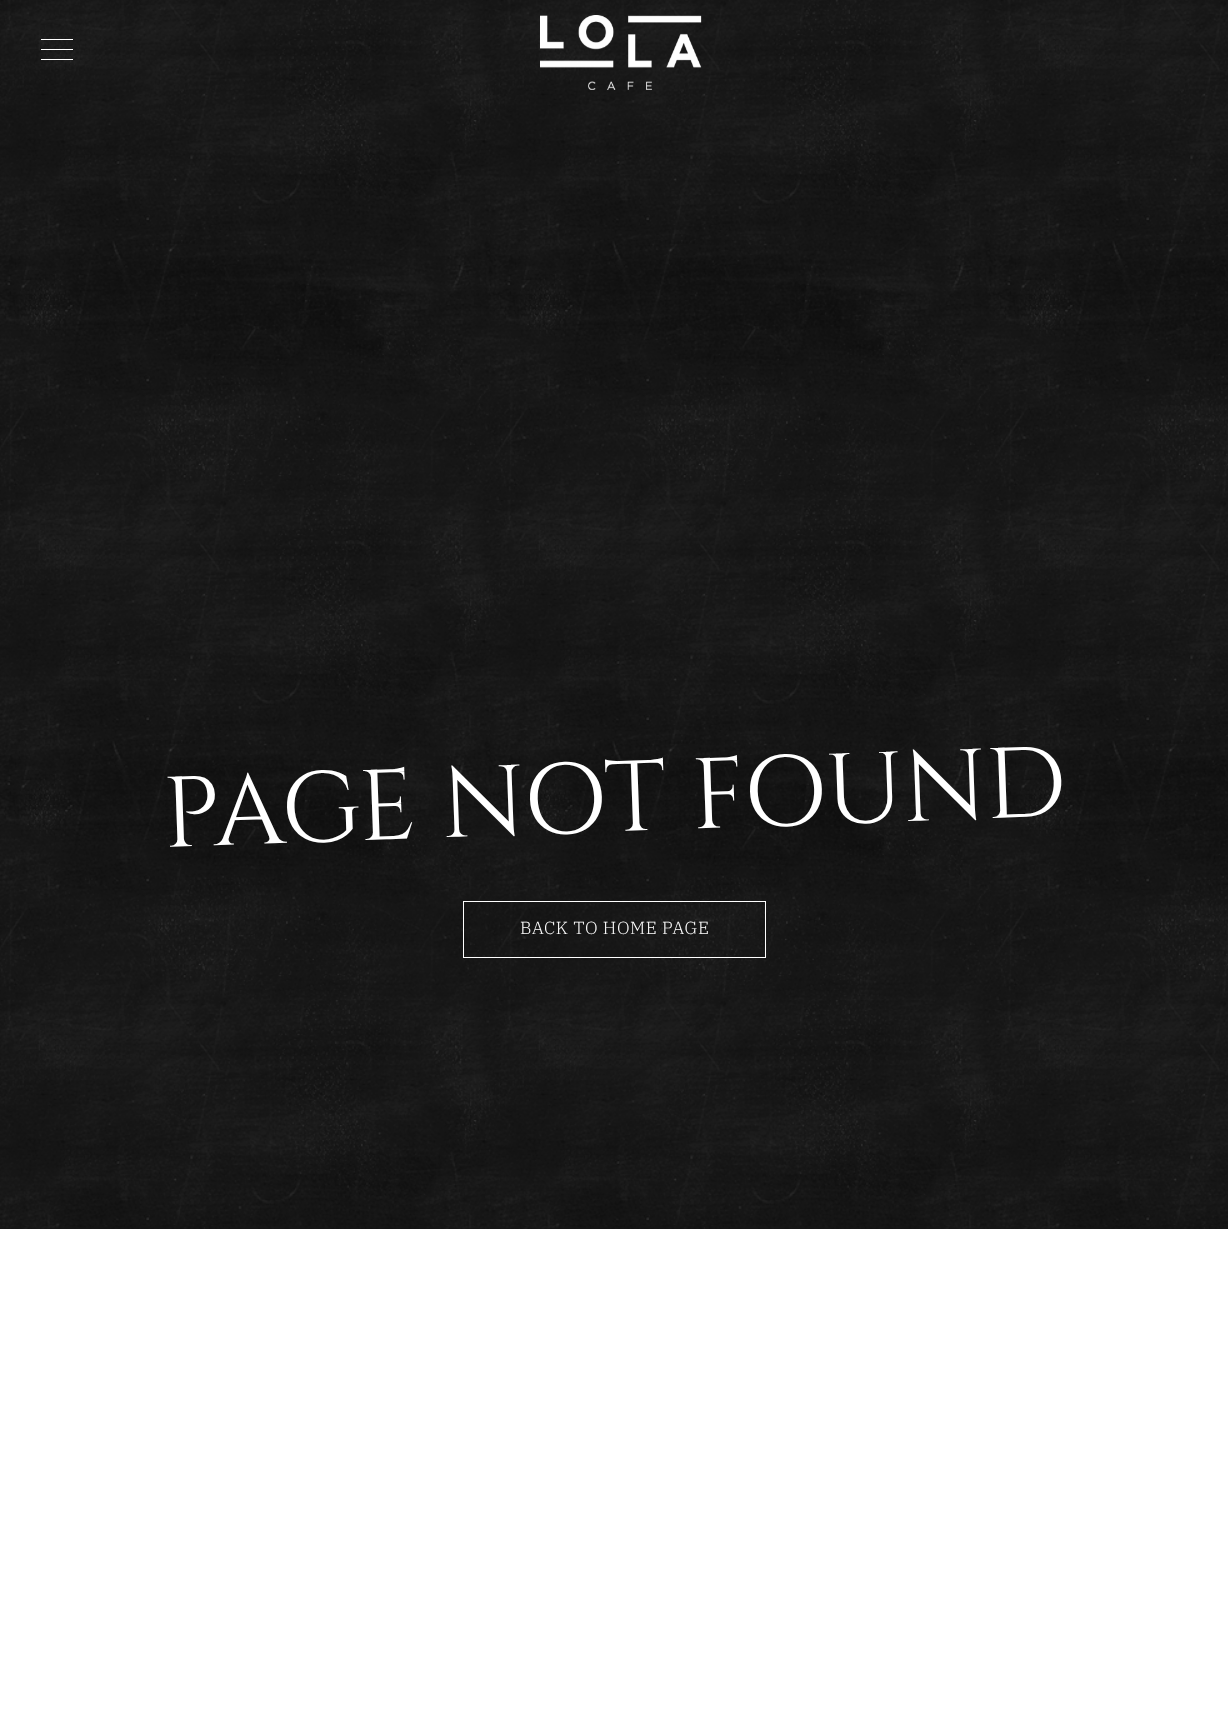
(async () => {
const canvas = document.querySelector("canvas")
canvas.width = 1228
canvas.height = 1733
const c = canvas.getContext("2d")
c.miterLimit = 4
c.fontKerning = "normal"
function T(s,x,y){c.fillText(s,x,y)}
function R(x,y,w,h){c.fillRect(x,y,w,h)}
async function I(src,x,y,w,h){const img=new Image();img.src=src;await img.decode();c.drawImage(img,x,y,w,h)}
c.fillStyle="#fff"
R(0,0,1228,1733)
c.fillStyle="#111"
R(0,0,1228,1229)
await I("2.png",0,0,1228,1229)
c.fillStyle="#fff"
R(41,39,32,1)
R(41,49,32,1)
R(41,59,32,1)
await I("1.png",540,15,162,75)
c.font="100px Cinzel"
c.save()
c.translate(164,847)
c.rotate(-2 * Math.PI / 180)
c.fillText("PAGE NOT FOUND",0,0)
c.restore()
c.strokeStyle="#fff"
c.strokeRect(463.5,901.5,302,56)
c.letterSpacing="0.6px"
c.font="300 17.5px IBM Plex Serif"
T("BACK TO HOME PAGE",520,934)
})()
